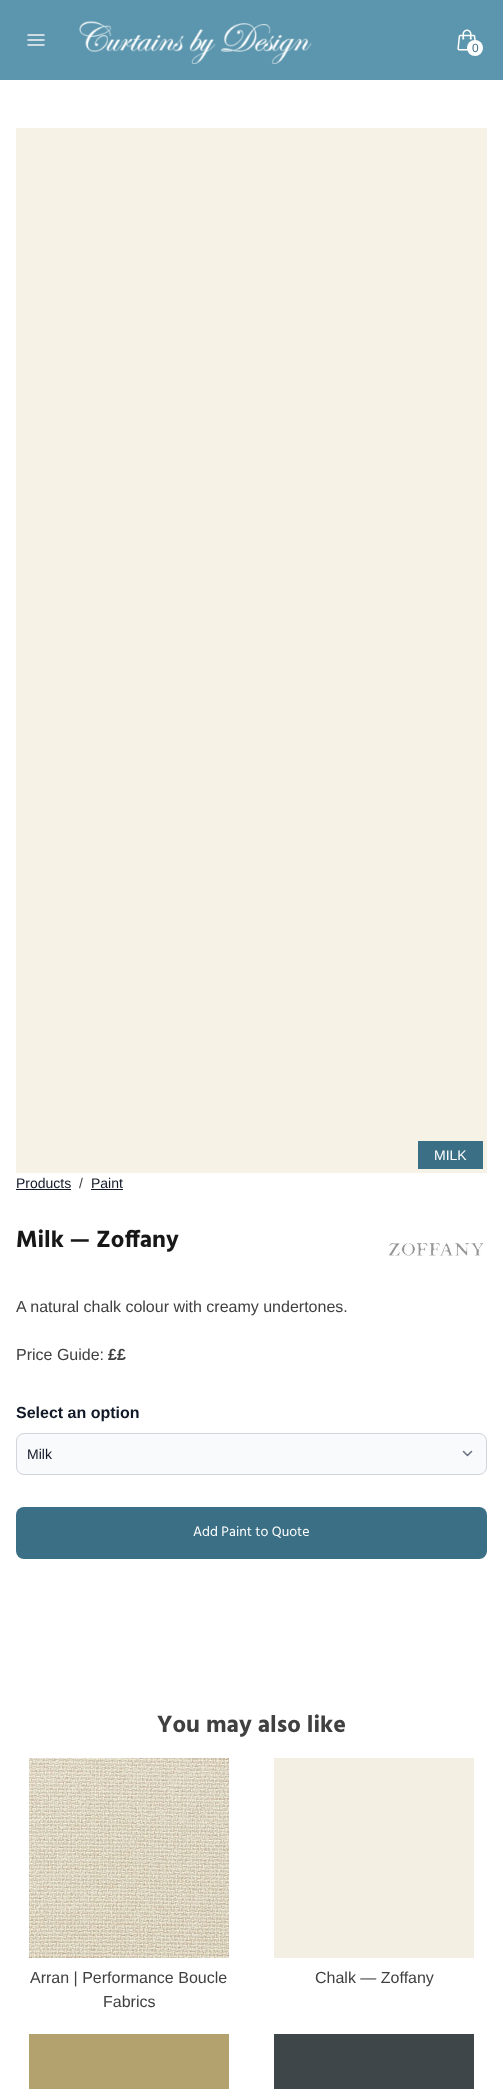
(async () => {
const canvas = document.querySelector("canvas")
canvas.width = 503
canvas.height = 2089
const c = canvas.getContext("2d")
c.miterLimit = 4
c.fontKerning = "normal"
function T(s,x,y){c.fillText(s,x,y)}
function R(x,y,w,h){c.fillRect(x,y,w,h)}
function Q(x,y,w,h,r){c.beginPath();c.roundRect(x,y,w,h,r);c.fill()}
async function I(src,x,y,w,h){const img=new Image();img.src=src;await img.decode();c.drawImage(img,x,y,w,h)}
let path
c.fillStyle="#fff"
R(0,0,503,2089)
c.fillStyle="#5c96ae"
R(0,0,503,80)
path = new Path2D("M28 35h16m-16 5h16m-16 5h16")
c.strokeStyle="#f3f4f6"
c.lineWidth=1.5
c.lineCap="round"
c.lineJoin="round"
c.stroke(path)
await I("1.png",79,21,233,43)
await I("2.png",457,29,19,22)
c.fillStyle="#fff"
c.beginPath()
c.arc(475,48,8,0,7)
c.fill()
c.font="12px Liberation Sans"
c.fillStyle="#3b6f85"
T("0",472,52)
c.fillStyle="#f6f2e6"
R(16,128,471,1045)
c.fillStyle="#3b6f85"
R(418,1141,65,28)
c.font="14px Liberation Sans"
c.fillStyle="#fff"
T("MILK",434,1160)
c.fillStyle="#111827"
T("Products",16,1188)
R(16,1189,55,1)
c.fillStyle="#404040"
T("/",79,1188)
c.fillStyle="#111827"
T("Paint",91,1188)
R(91,1189,32,1)
c.font="bold 24px Hind"
c.fillStyle="#171717"
T("Milk — Zoffany",16,1247)
await I("3.png",389,1243,95,13)
c.font="16px Liberation Sans"
c.fillStyle="#404040"
T("A natural chalk colour with creamy undertones.",16,1312)
T("Price Guide:",16,1360)
c.font="bold 16px Liberation Sans"
T("££",108,1360)
c.fillStyle="#111827"
T("Select an option",16,1418)
c.fillStyle="#f9fafb"
Q(16,1433,471,42,8)
path = new Path2D("M463.5 1451.5l4 4l4-4")
c.strokeStyle="#6b7280"
c.lineWidth=1.6
c.stroke(path)
c.beginPath()
c.roundRect(16.5,1433.5,470,41,7.5)
c.strokeStyle="#d1d5db"
c.lineWidth=1
c.lineJoin="miter"
c.stroke()
c.font="14px Liberation Sans"
c.fillStyle="#111827"
T("Milk",27,1459)
c.fillStyle="#3b6f85"
Q(16,1507,471,52,8)
c.font="14px Hind"
c.fillStyle="#fff"
T("Add Paint to Quote",193,1536)
c.font="bold 24px Hind"
c.fillStyle="#404040"
T("You may also like",157,1732)
await I("4.png",29,1758,200,200)
c.font="16px Liberation Sans"
T("Arran | Performance Boucle",30,1983)
T("Fabrics",103,2007)
c.fillStyle="#f3efe3"
R(274,1758,200,200)
c.fillStyle="#404040"
T("Chalk — Zoffany",315,1983)
c.fillStyle="#b3a26e"
R(29,2034,200,55)
c.fillStyle="#3e4649"
R(274,2034,200,55)
})()
